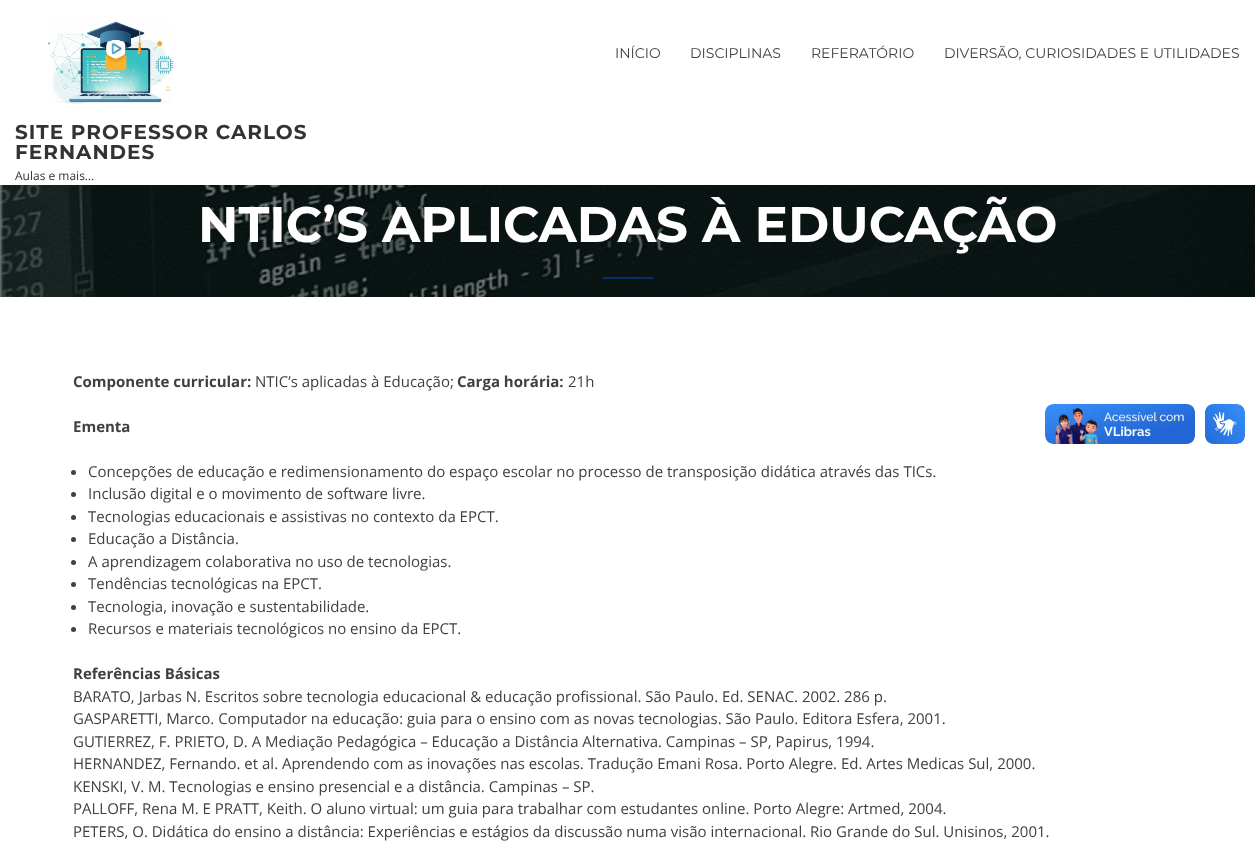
(async () => {
const canvas = document.querySelector("canvas")
canvas.width = 1255
canvas.height = 847
const c = canvas.getContext("2d")
c.miterLimit = 4
c.fontKerning = "normal"
function T(s,x,y){c.fillText(s,x,y)}
function R(x,y,w,h){c.fillRect(x,y,w,h)}
async function I(src,x,y,w,h){const img=new Image();img.src=src;await img.decode();c.drawImage(img,x,y,w,h)}
c.fillStyle="#fff"
R(0,0,1255,847)
c.font="14px Montserrat"
c.fillStyle="#404040"
T("INÍCIO",615,58)
T("DISCIPLINAS",690,58)
T("REFERATÓRIO",811,58)
T("DIVERSÃO, CURIOSIDADES E UTILIDADES",944,58)
await I("1.png",48,21,126,84)
c.letterSpacing="1px"
c.font="bold 20px Montserrat"
c.fillStyle="#333"
T("SITE PROFESSOR CARLOS",15,139)
T("FERNANDES",15,159)
c.letterSpacing="0px"
c.font="12px Open Sans"
T("Aulas e mais…",15,180)
await I("2.png",0,185,1255,112)
c.font="bold 50px Montserrat"
c.fillStyle="#fff"
T("NTIC’S APLICADAS À EDUCAÇÃO",198,242)
c.fillStyle="#036"
R(603,277,50,2)
c.font="bold 15px Open Sans"
c.fillStyle="#404040"
T("Componente curricular:",73,387)
c.font="15px Open Sans"
T("NTIC’s aplicadas à Educação;",255,387)
c.font="bold 15px Open Sans"
T("Carga horária:",457,387)
c.font="15px Open Sans"
T("21h",568,387)
c.font="bold 15px Open Sans"
T("Ementa",73,432)
c.beginPath()
c.arc(73.5,472.5,2.5,0,7)
c.fill()
c.font="15px Open Sans"
T("Concepções de educação e redimensionamento do espaço escolar no processo de transposição didática através das TICs.",88,477)
c.beginPath()
c.arc(73.5,494.5,2.5,0,7)
c.fill()
T("Inclusão digital e o movimento de software livre.",88,499)
c.beginPath()
c.arc(73.5,517.5,2.5,0,7)
c.fill()
T("Tecnologias educacionais e assistivas no contexto da EPCT.",88,522)
c.beginPath()
c.arc(73.5,539.5,2.5,0,7)
c.fill()
T("Educação a Distância.",88,544)
c.beginPath()
c.arc(73.5,562.5,2.5,0,7)
c.fill()
T("A aprendizagem colaborativa no uso de tecnologias.",88,567)
c.beginPath()
c.arc(73.5,584.5,2.5,0,7)
c.fill()
T("Tendências tecnológicas na EPCT.",88,589)
c.beginPath()
c.arc(73.5,607.5,2.5,0,7)
c.fill()
T("Tecnologia, inovação e sustentabilidade.",88,612)
c.beginPath()
c.arc(73.5,629.5,2.5,0,7)
c.fill()
T("Recursos e materiais tecnológicos no ensino da EPCT.",88,634)
c.font="bold 15px Open Sans"
T("Referências Básicas",73,679)
c.font="15px Open Sans"
T("BARATO, Jarbas N. Escritos sobre tecnologia educacional & educação profissional. São Paulo. Ed. SENAC. 2002. 286 p.",73,702)
T("GASPARETTI, Marco. Computador na educação: guia para o ensino com as novas tecnologias. São Paulo. Editora Esfera, 2001.",73,724)
T("GUTIERREZ, F. PRIETO, D. A Mediação Pedagógica – Educação a Distância Alternativa. Campinas – SP, Papirus, 1994.",73,747)
T("HERNANDEZ, Fernando. et al. Aprendendo com as inovações nas escolas. Tradução Emani Rosa. Porto Alegre. Ed. Artes Medicas Sul, 2000.",73,769)
T("KENSKI, V. M. Tecnologias e ensino presencial e a distância. Campinas – SP.",73,792)
T("PALLOFF, Rena M. E PRATT, Keith. O aluno virtual: um guia para trabalhar com estudantes online. Porto Alegre: Artmed, 2004.",73,814)
T("PETERS, O. Didática do ensino a distância: Experiências e estágios da discussão numa visão internacional. Rio Grande do Sul. Unisinos, 2001.",73,837)
await I("3.png",1045,404,150,40)
await I("4.png",1205,404,40,40)
})()
